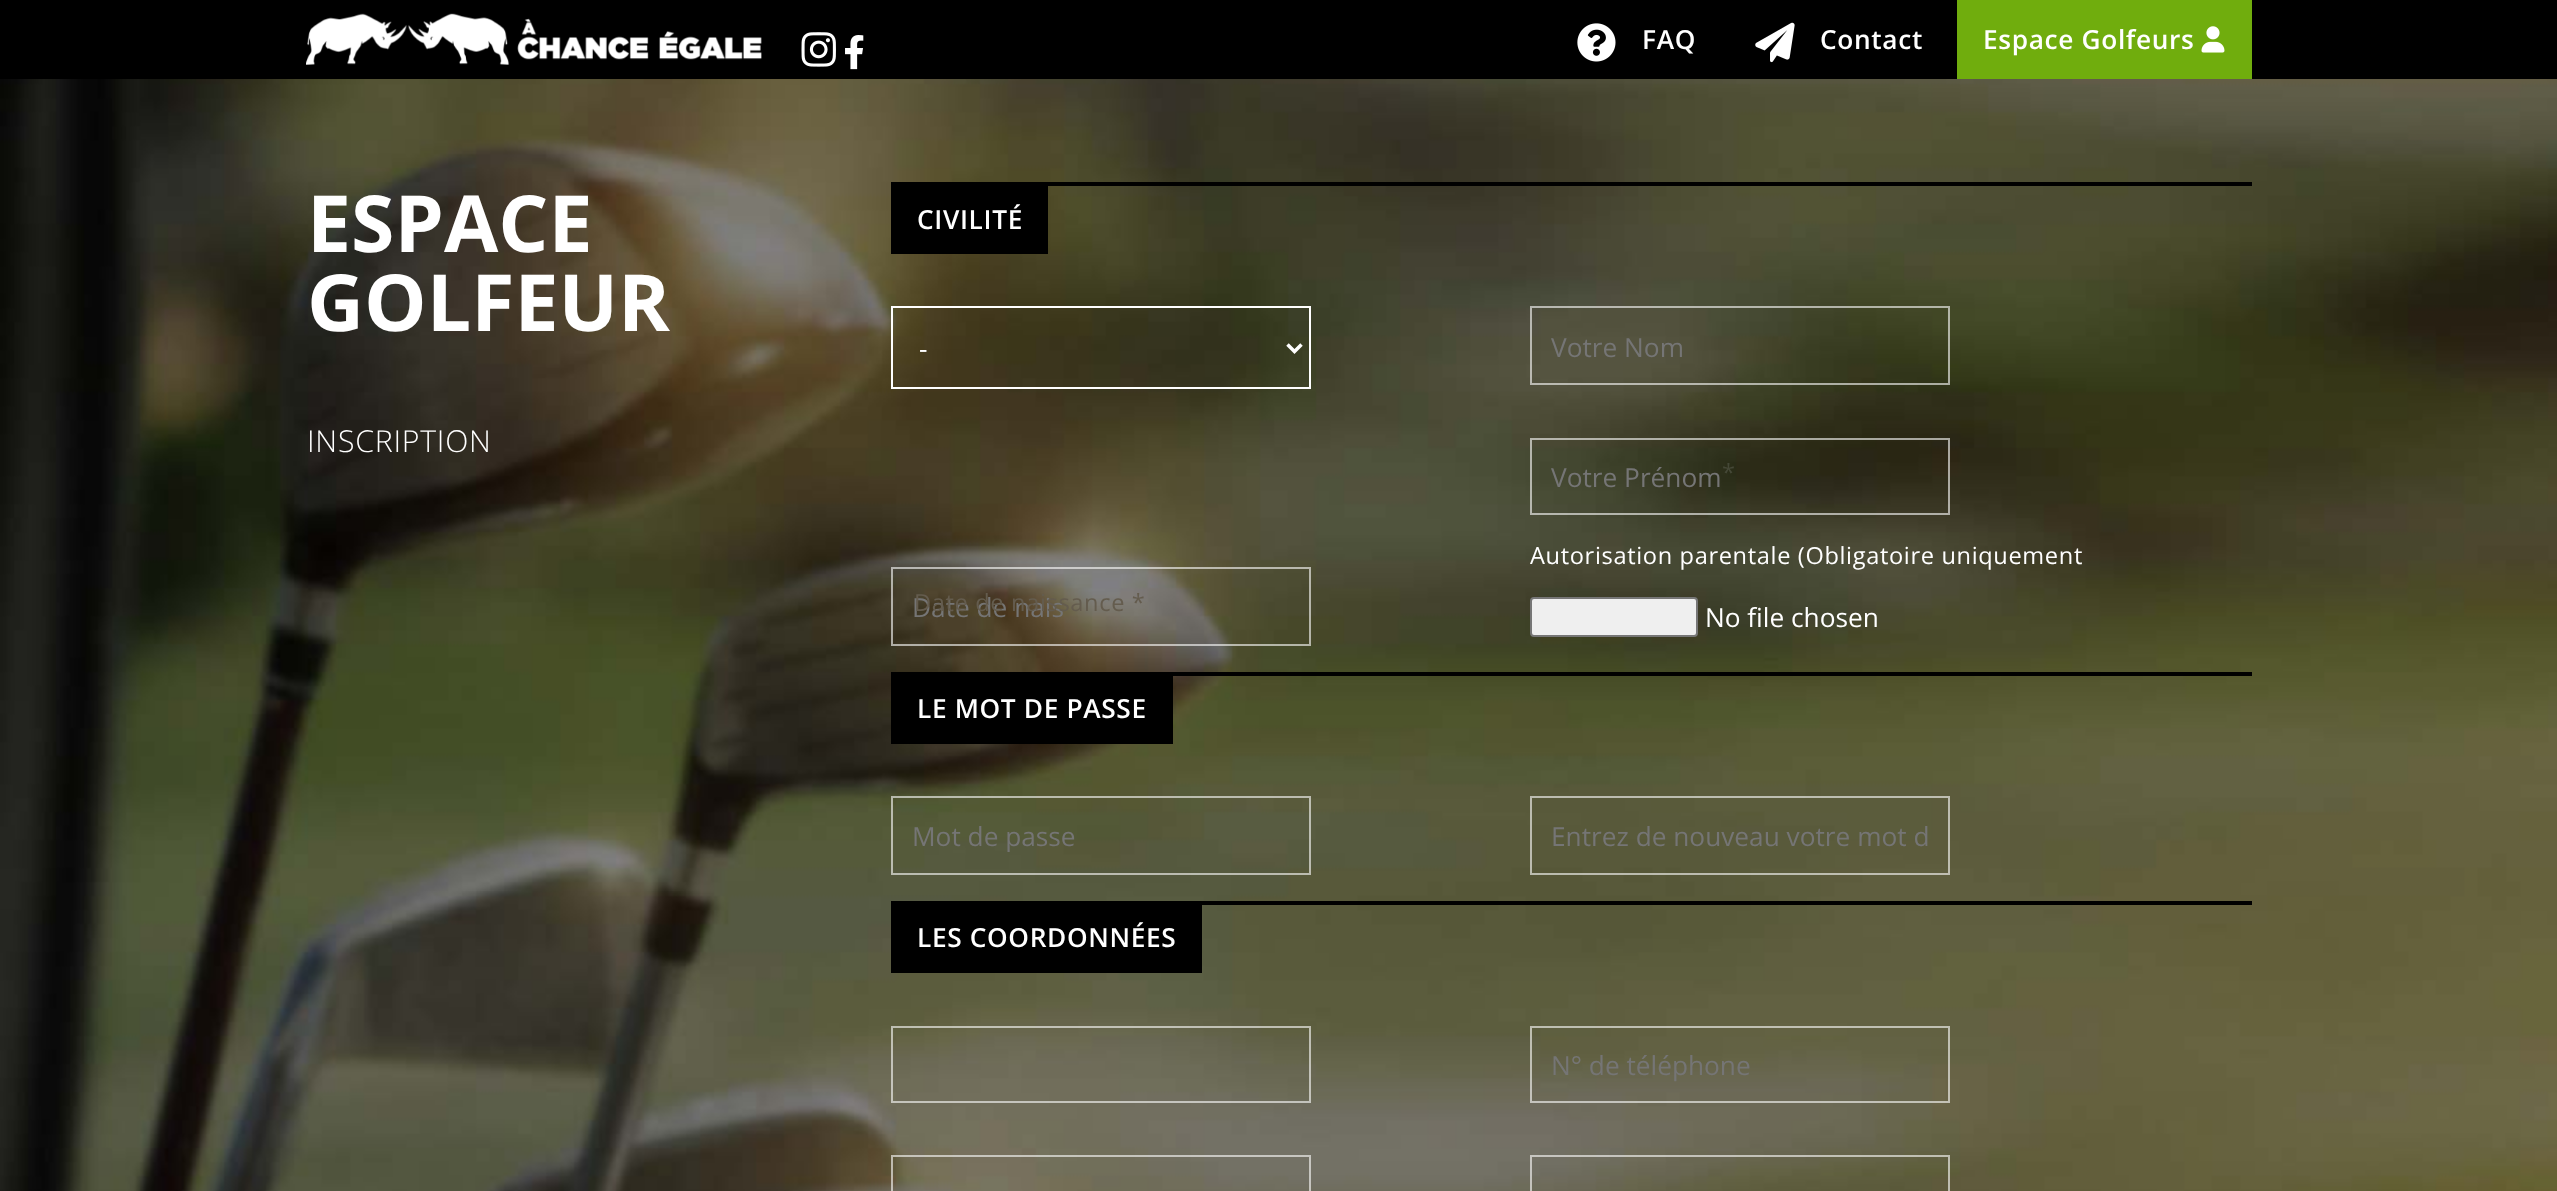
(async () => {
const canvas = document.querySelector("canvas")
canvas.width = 2557
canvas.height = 1191
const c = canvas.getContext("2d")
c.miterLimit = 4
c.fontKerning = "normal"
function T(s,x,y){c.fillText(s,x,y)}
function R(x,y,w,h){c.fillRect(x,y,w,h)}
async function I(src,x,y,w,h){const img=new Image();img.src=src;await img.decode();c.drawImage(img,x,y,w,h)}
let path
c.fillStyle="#fff"
R(0,0,2557,1191)
c.fillStyle="#000"
R(0,0,2557,79)
await I("1.png",306,13,456,52)
await I("2.png",801,32,35,35)
await I("3.png",845,35,19,35)
await I("4.png",1577,23,39,39)
c.letterSpacing="0.65px"
c.font="600 26.25px Open Sans"
c.fillStyle="#fff"
T("FAQ",1642,49)
await I("5.png",1755,22,40,41)
T("Contact",1820,49)
c.fillStyle="#70ad0d"
R(1957,0,295,79)
c.fillStyle="#fff"
T("Espace Golfeurs",1983,49)
await I("6.png",2201,26,24,27)
await I("7.png",0,79,2557,1112)
c.letterSpacing="0px"
c.font="bold 78.75px Open Sans"
T("ESPACE",307,252)
T("GOLFEUR",307,331)
c.letterSpacing="0.75px"
c.font="300 30.25px Open Sans"
T("INSCRIPTION",307,452)
c.fillStyle="#000"
R(1048,182,1204,4)
R(891,182,157,72)
c.letterSpacing="0.65px"
c.font="600 26.25px Open Sans"
c.fillStyle="#fff"
T("CIVILITÉ",917,229)
c.strokeStyle="#fff"
c.lineWidth=2
c.strokeRect(892,307,418,81)
path = new Path2D("M1287.5 344.5l7 7l7-7")
c.lineWidth=3.5
c.stroke(path)
c.letterSpacing="0px"
c.font="26.25px Open Sans"
T("-",919,358)
c.strokeStyle="#ffffff99"
c.lineWidth=2
c.strokeRect(1531,307,418,77)
c.fillStyle="#757575"
T("Votre Nom",1551,357)
c.strokeRect(1531,439,418,75)
T("Votre Prénom",1551,487)
c.letterSpacing="0.65px"
c.font="23.6px Open Sans"
c.fillStyle="#454837"
T("*",1722,481)
c.strokeRect(892,568,418,77)
c.letterSpacing="0px"
c.font="26.25px Open Sans"
c.fillStyle="#757575"
T("Date de nais",912,617)
c.letterSpacing="0.65px"
c.font="23.6px Open Sans"
c.fillStyle="#645c4e"
T("Date de naissance *",914,611)
c.fillStyle="#fff"
T("Autorisation parentale (Obligatoire uniquement",1530,564)
c.fillStyle="#efefef"
c.beginPath()
c.roundRect(1531,598,166,38,3)
c.fill()
c.strokeStyle="#767676"
c.stroke()
c.letterSpacing="0px"
c.font="26.25px Open Sans"
c.fillStyle="#fff"
T("No file chosen",1705,627)
c.fillStyle="#000"
R(1173,672,1079,4)
R(891,672,282,72)
c.letterSpacing="0.65px"
c.font="600 26.25px Open Sans"
c.fillStyle="#fff"
T("LE MOT DE PASSE",917,718)
c.strokeStyle="#ffffff99"
c.strokeRect(892,797,418,77)
c.save()
c.beginPath()
c.rect(912,817,378,35)
c.clip()
c.letterSpacing="0px"
c.font="26.25px Open Sans"
c.fillStyle="#757575"
T("Mot de passe",912,846)
c.restore()
c.strokeRect(1531,797,418,77)
c.letterSpacing="0px"
c.font="26.25px Open Sans"
c.fillStyle="#757575"
T("Entrez de nouveau votre mot d",1551,846)
c.fillStyle="#000"
R(1202,901,1050,4)
R(891,901,311,72)
c.letterSpacing="0.65px"
c.font="600 26.25px Open Sans"
c.fillStyle="#fff"
T("LES COORDONNÉES",917,947)
c.strokeRect(892,1027,418,75)
c.strokeRect(1531,1027,418,75)
c.letterSpacing="0px"
c.font="26.25px Open Sans"
c.fillStyle="#757575"
T("N° de téléphone",1551,1075)
c.strokeRect(892,1156,418,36)
c.strokeRect(1531,1156,418,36)
})()
